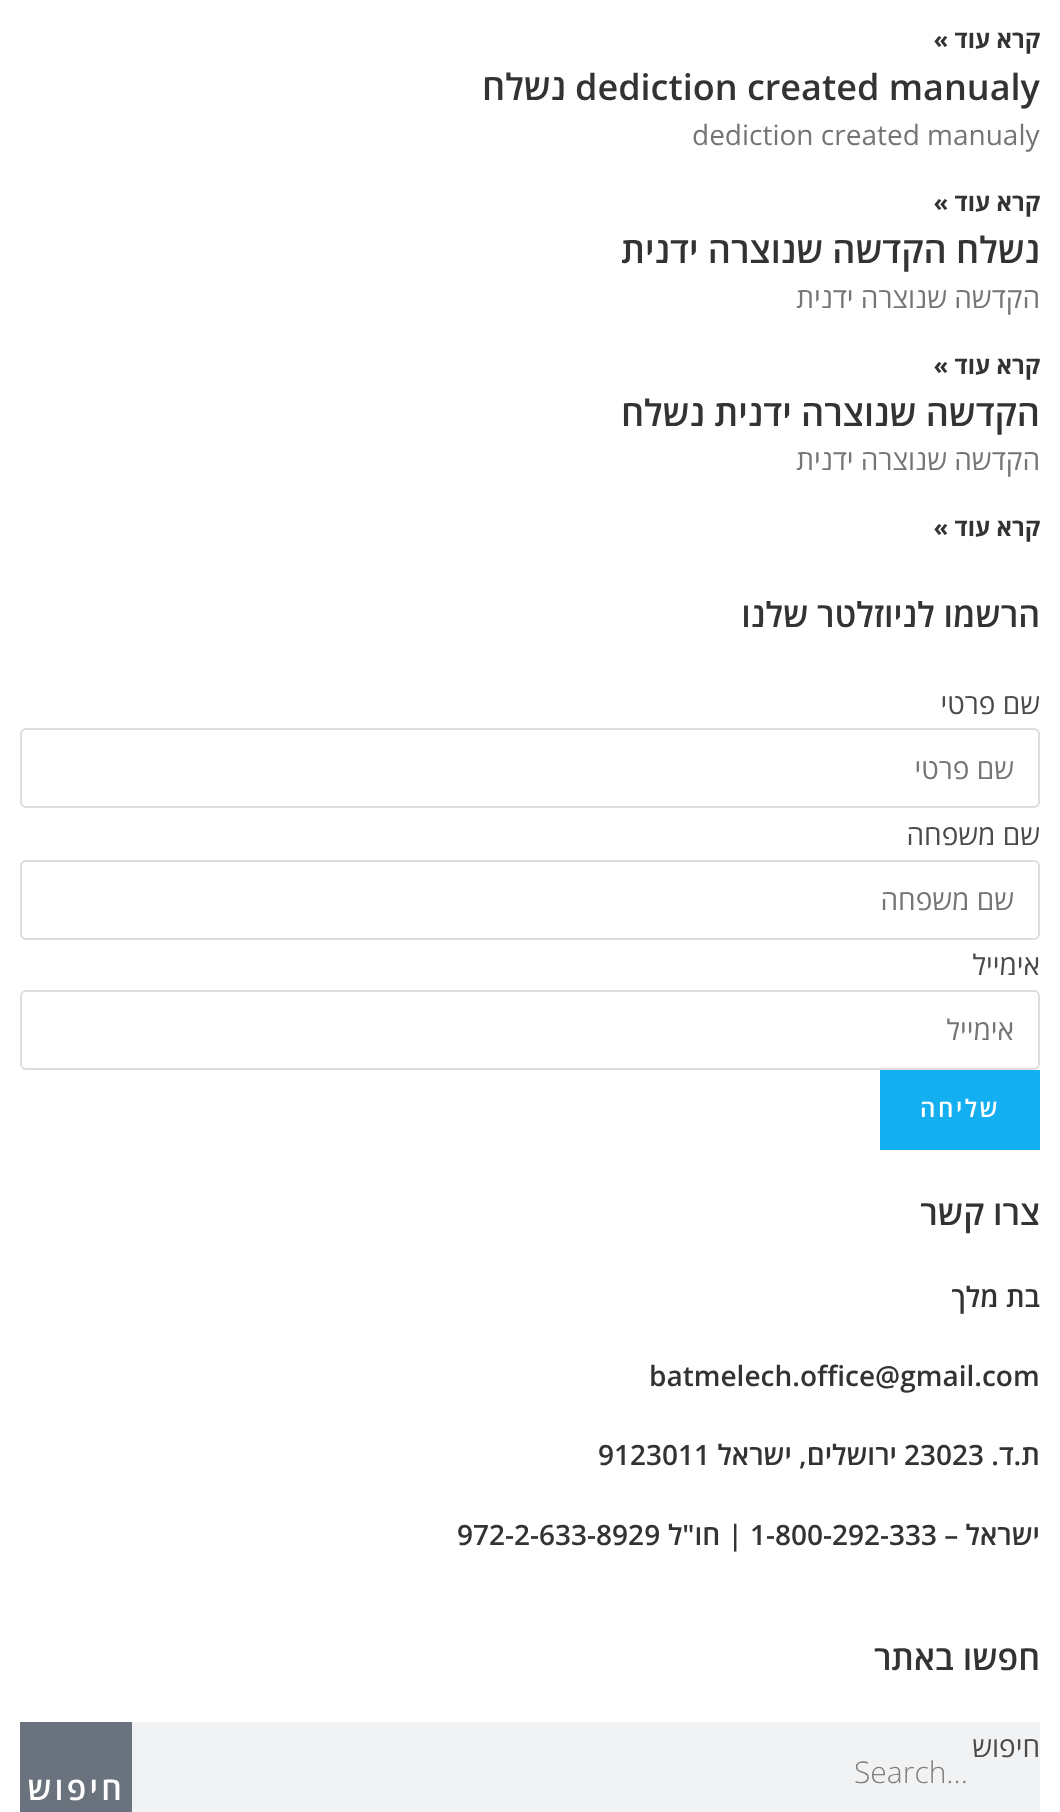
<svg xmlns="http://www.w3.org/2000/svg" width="1060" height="1812">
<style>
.a{font:bold 24px Open Sans;direction:rtl;fill:#333}
.b{font:600 36px Open Sans;fill:#333}
.c{font:600 36px Open Sans;direction:rtl;fill:#333}
.d{font:28px Open Sans;fill:#757575}
.e{font:28px Open Sans;direction:rtl;fill:#757575}
.f{font:600 34px Open Sans;direction:rtl;fill:#333}
.g{font:28px Open Sans;direction:rtl;fill:#4a4a4a}
.h{font:600 24px Open Sans;letter-spacing:2.5px;direction:rtl;fill:#fff}
.i{font:600 28px Open Sans;direction:rtl;fill:#333}
.j{font:600 28px Open Sans;fill:#333}
.k{font:300 30px Open Sans;fill:#7f7f80}
.l{font:600 32px Open Sans;letter-spacing:3.25px;direction:rtl;fill:#fff}
</style>
<rect width="100%" height="100%" fill="#fff"/>
<rect fill="none" stroke="#ddd" stroke-width="2" x="21" y="729" width="1018" height="78" rx="5"/>
<rect fill="none" stroke="#ddd" stroke-width="2" x="21" y="861" width="1018" height="78" rx="5"/>
<rect fill="none" stroke="#ddd" stroke-width="2" x="21" y="991" width="1018" height="78" rx="5"/>
<path fill="#13aff0" d="M880 1070h160v80H880z"/>
<path fill="#f1f2f3" d="M132 1722h908v90H132z"/>
<path fill="#69727d" d="M20 1722h112v90H20z"/>
<text class="a" x="1040" y="48">קרא עוד »</text>
<text class="b" x="575" y="100">dediction created manualy</text>
<text class="c" x="566" y="100">נשלח</text>
<text class="d" x="692" y="145">dediction created manualy</text>
<text class="a" x="1040" y="211">קרא עוד »</text>
<text class="c" x="1040" y="263">נשלח הקדשה שנוצרה ידנית</text>
<text class="e" x="1040" y="308">הקדשה שנוצרה ידנית</text>
<text class="a" x="1040" y="374">קרא עוד »</text>
<text class="c" x="1040" y="426">הקדשה שנוצרה ידנית נשלח</text>
<text class="e" x="1040" y="470">הקדשה שנוצרה ידנית</text>
<text class="a" x="1040" y="536">קרא עוד »</text>
<text class="f" x="1040" y="627">הרשמו לניוזלטר שלנו</text>
<text class="g" x="1040" y="714">שם פרטי</text>
<text class="e" x="1014" y="779">שם פרטי</text>
<text class="g" x="1040" y="845">שם משפחה</text>
<text class="e" x="1014" y="910">שם משפחה</text>
<text class="g" x="1040" y="975">אימייל</text>
<text class="e" x="1014" y="1040">אימייל</text>
<text class="h" x="1000" y="1117">שליחה</text>
<text class="f" x="1040" y="1225">צרו קשר</text>
<text class="i" x="1040" y="1307">בת מלך</text>
<text class="j" x="649" y="1386">batmelech.office@gmail.com</text>
<text class="i" x="1040" y="1465">ת.ד.</text>
<text class="j" x="904" y="1465">23023</text>
<text class="i" x="897" y="1465">ירושלים, ישראל</text>
<text class="j" x="598" y="1465">9123011</text>
<text class="i" x="1040" y="1545">ישראל –</text>
<text class="j" x="750" y="1545">1-800-292-333</text>
<text class="i" x="743" y="1545">| חו"ל</text>
<text class="j" x="457" y="1545">972-2-633-8929</text>
<text class="f" x="1040" y="1670">חפשו באתר</text>
<text class="g" x="1040" y="1757">חיפוש</text>
<text class="k" x="854" y="1783">Search...</text>
<text class="l" x="125" y="1800">חיפוש</text>
</svg>
